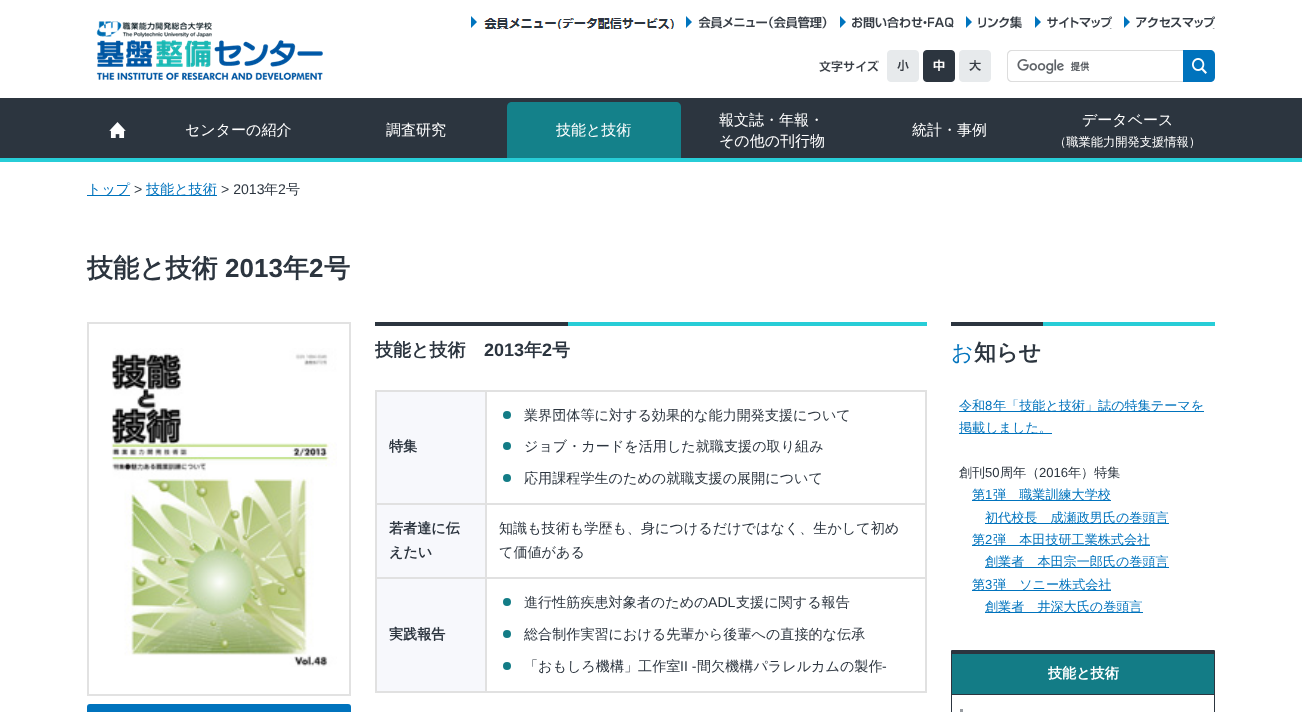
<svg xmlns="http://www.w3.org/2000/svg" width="1302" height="712">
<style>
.a{font:500 15px WenQuanYi Zen Hei;fill:#fff}
.b{font:500 12.25px WenQuanYi Zen Hei;fill:#fff}
.c{font:500 14.1px WenQuanYi Zen Hei;fill:#0073bd}
.d{font:14.1px Liberation Sans;fill:#2c353f}
.e{font:500 14.1px WenQuanYi Zen Hei;fill:#2c353f}
.f{font:bold 26px WenQuanYi Zen Hei;fill:#2c353f}
.g{font:bold 26px Liberation Sans;fill:#2c353f}
.h{font:bold 18px WenQuanYi Zen Hei;fill:#2c353f}
.i{font:bold 18px Liberation Sans;fill:#2c353f}
.j{font:bold 14.1px WenQuanYi Zen Hei;fill:#2c353f}
.k{font:100 22px Noto Sans;fill:#0073bd}
.l{font:bold 22px WenQuanYi Zen Hei;fill:#2c353f}
.m{font:500 13.1px WenQuanYi Zen Hei;fill:#0073bd}
.n{font:13.1px Liberation Sans;fill:#0073bd}
.o{font:500 13.1px WenQuanYi Zen Hei;fill:#2c353f}
.p{font:13.1px Liberation Sans;fill:#2c353f}
.q{font:bold 14.1px WenQuanYi Zen Hei;fill:#fff}
</style>
<rect width="100%" height="100%" fill="#fff"/>
<image href="1.png" x="96" y="21" width="227" height="59"/>
<image href="2.png" x="471" y="16" width="6" height="12"/>
<image href="3.png" x="484" y="18" width="190" height="11"/>
<image href="2.png" x="686" y="16" width="6" height="12"/>
<image href="4.png" x="698" y="16" width="130" height="13"/>
<image href="2.png" x="840" y="16" width="6" height="12"/>
<image href="5.png" x="852" y="17" width="102" height="12"/>
<image href="2.png" x="966" y="16" width="6" height="12"/>
<image href="6.png" x="978" y="16" width="44" height="13"/>
<image href="2.png" x="1035" y="16" width="6" height="12"/>
<image href="7.png" x="1047" y="16" width="65" height="13"/>
<image href="2.png" x="1124" y="16" width="6" height="12"/>
<image href="8.png" x="1136" y="16" width="79" height="13"/>
<image href="9.png" x="819" y="60" width="60" height="12"/>
<image href="10.png" x="887" y="50" width="32" height="32"/>
<image href="11.png" x="923" y="50" width="32" height="32"/>
<image href="12.png" x="959" y="50" width="32" height="32"/>
<image href="13.png" x="1017" y="59" width="73" height="15"/>
<path fill="#ddd" fill-rule="evenodd" d="M1012 50h171v32h-171c-3 0-5-2-5-5v-22c0-3 2-5 5-5zm0 1h171v30h-171c-2 0-4-2-4-4v-22c0-2 2-4 4-4z"/>
<path fill="#0073bd" d="M1183 50h27c3 0 5 2 5 5v22c0 3-2 5-5 5h-27z"/>
<image href="14.png" x="1192" y="58" width="15" height="16"/>
<path fill="#2c353f" d="M0 98h1302v60H0z"/>
<path fill="#27cdd7" d="M0 158h1302v4H0z"/>
<image href="15.png" x="109" y="122" width="17" height="16"/>
<path fill="#14818a" d="M512 102h164c3 0 5 2 5 5v51h-174v-51c0-3 2-5 5-5z"/>
<path fill="#0073bd" d="M87 195h43v1H87z"/>
<path fill="#0073bd" d="M146 195h71v1H146z"/>
<path fill="none" stroke="#e2e2e2" stroke-width="2" d="M88 323h262v372H88z"/>
<image href="16.png" x="111" y="348" width="226" height="319"/>
<rect fill="#0073bd" x="87" y="704" width="264" height="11" rx="3"/>
<path fill="#2c353f" d="M375 322h193v4H375z"/>
<path fill="#27cdd7" d="M568 322h359v4H568z"/>
<path fill="#e1e1e1" d="M375 390h552v2H375z"/>
<path fill="#e1e1e1" d="M925 390h2v303H925z"/>
<path fill="#e1e1e1" d="M375 691h552v2H375z"/>
<path fill="#e1e1e1" d="M375 390h2v303H375z"/>
<path fill="#f7f8fc" d="M377 392h108v111H377z"/>
<path fill="#e1e1e1" d="M485 503h442v2H485z"/>
<path fill="#e1e1e1" d="M485 577h442v2H485z"/>
<path fill="#e1e1e1" d="M485 577h2v116H485z"/>
<path fill="#e1e1e1" d="M375 577h112v2H375z"/>
<path fill="#e1e1e1" d="M485 503h2v76H485z"/>
<path fill="#e1e1e1" d="M375 503h112v2H375z"/>
<path fill="#e1e1e1" d="M485 390h2v115H485z"/>
<circle fill="#137c86" cx="507" cy="415" r="4"/>
<circle fill="#137c86" cx="507" cy="446" r="4"/>
<circle fill="#137c86" cx="507" cy="478" r="4"/>
<path fill="#f7f8fc" d="M377 505h108v72H377z"/>
<path fill="#f7f8fc" d="M377 579h108v112H377z"/>
<circle fill="#137c86" cx="507" cy="602" r="4"/>
<circle fill="#137c86" cx="507" cy="634" r="4"/>
<circle fill="#137c86" cx="507" cy="666" r="4"/>
<path fill="#2c353f" d="M951 322h92v4H951z"/>
<path fill="#27cdd7" d="M1043 322h172v4H1043z"/>
<path fill="#0073bd" d="M959 411h245v1H959z"/>
<path fill="#0073bd" d="M959 433h93v1H959z"/>
<path fill="#0073bd" d="M972 500h139v1H972z"/>
<path fill="#0073bd" d="M985 523h184v1H985z"/>
<path fill="#0073bd" d="M972 545h178v1H972z"/>
<path fill="#0073bd" d="M985 567h184v1H985z"/>
<path fill="#0073bd" d="M972 590h139v1H972z"/>
<path fill="#0073bd" d="M985 612h158v1H985z"/>
<path fill="none" stroke="#2c353f" d="M951.5 650.5h263v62H951.5z"/>
<path fill="#2c353f" d="M952 651h262v3H952z"/>
<path fill="#2c353f" d="M952 694h262v1H952z"/>
<path fill="#137c86" d="M952 654h262v40H952z"/>
<path fill="#989ca1" d="M960 709h3v3H960z"/>
<text class="a" x="185" y="135">センターの紹介</text>
<text class="a" x="386" y="135">調査研究</text>
<text class="a" x="556" y="135">技能と技術</text>
<text class="a" x="719" y="125">報文誌・年報・</text>
<text class="a" x="719" y="146">その他の刊行物</text>
<text class="a" x="912" y="135">統計・事例</text>
<text class="a" x="1082" y="125">データベース</text>
<text class="b" x="1054" y="146">（職業能力開発支援情報）</text>
<text class="c" x="87" y="194">トップ</text>
<text class="d" x="134" y="194">&gt;</text>
<text class="c" x="146" y="194">技能と技術</text>
<text class="d" x="221" y="194">&gt; 2013</text>
<text class="e" x="264" y="194">年</text>
<text class="d" x="278" y="194">2</text>
<text class="e" x="286" y="194">号</text>
<text class="f" x="87" y="277">技能と技術</text>
<text class="g" x="225" y="277">2013</text>
<text class="f" x="283" y="277">年</text>
<text class="g" x="309" y="277">2</text>
<text class="f" x="324" y="277">号</text>
<text class="h" x="375" y="356">技能と技術</text>
<text class="i" x="484" y="356">2013</text>
<text class="h" x="524" y="356">年</text>
<text class="i" x="542" y="356">2</text>
<text class="h" x="552" y="356">号</text>
<text class="j" x="389" y="451">特集</text>
<text class="e" x="524" y="420">業界団体等に対する効果的な能力開発支援について</text>
<text class="e" x="524" y="451">ジョブ・カードを活用した就職支援の取り組み</text>
<text class="e" x="524" y="483">応用課程学生のための就職支援の展開について</text>
<text class="j" x="389" y="533">若者達に伝</text>
<text class="j" x="389" y="557">えたい</text>
<text class="e" x="499" y="533">知識も技術も学歴も、身につけるだけではなく、生かして初め</text>
<text class="e" x="499" y="557">て価値がある</text>
<text class="j" x="389" y="639">実践報告</text>
<text class="e" x="524" y="607">進行性筋疾患対象者のための</text>
<text class="d" x="708" y="607">ADL</text>
<text class="e" x="736" y="607">支援に関する報告</text>
<text class="e" x="524" y="639">総合制作実習における先輩から後輩への直接的な伝承</text>
<text class="e" x="524" y="671">「おもしろ機構」工作室</text>
<text class="d" x="680" y="671">II -</text>
<text class="e" x="697" y="671">間欠機構パラレルカムの製作</text>
<text class="d" x="882" y="671">-</text>
<text class="k" x="951" y="360">お</text>
<text class="l" x="974" y="360">知らせ</text>
<text class="m" x="959" y="410">令和</text>
<text class="n" x="985" y="410">8</text>
<text class="m" x="993" y="410">年「技能と技術」誌の特集テーマを</text>
<text class="m" x="959" y="432">掲載しました。</text>
<text class="o" x="959" y="477">創刊</text>
<text class="p" x="985" y="477">50</text>
<text class="o" x="1000" y="477">周年（</text>
<text class="p" x="1039" y="477">2016</text>
<text class="o" x="1068" y="477">年）特集</text>
<text class="m" x="972" y="499">第</text>
<text class="n" x="985" y="499">1</text>
<text class="m" x="993" y="499">弾　職業訓練大学校</text>
<text class="m" x="985" y="522">初代校長　成瀬政男氏の巻頭言</text>
<text class="m" x="972" y="544">第</text>
<text class="n" x="985" y="544">2</text>
<text class="m" x="993" y="544">弾　本田技研工業株式会社</text>
<text class="m" x="985" y="566">創業者　本田宗一郎氏の巻頭言</text>
<text class="m" x="972" y="589">第</text>
<text class="n" x="985" y="589">3</text>
<text class="m" x="993" y="589">弾　ソニー株式会社</text>
<text class="m" x="985" y="611">創業者　井深大氏の巻頭言</text>
<text class="q" x="1048" y="678">技能と技術</text>
</svg>
